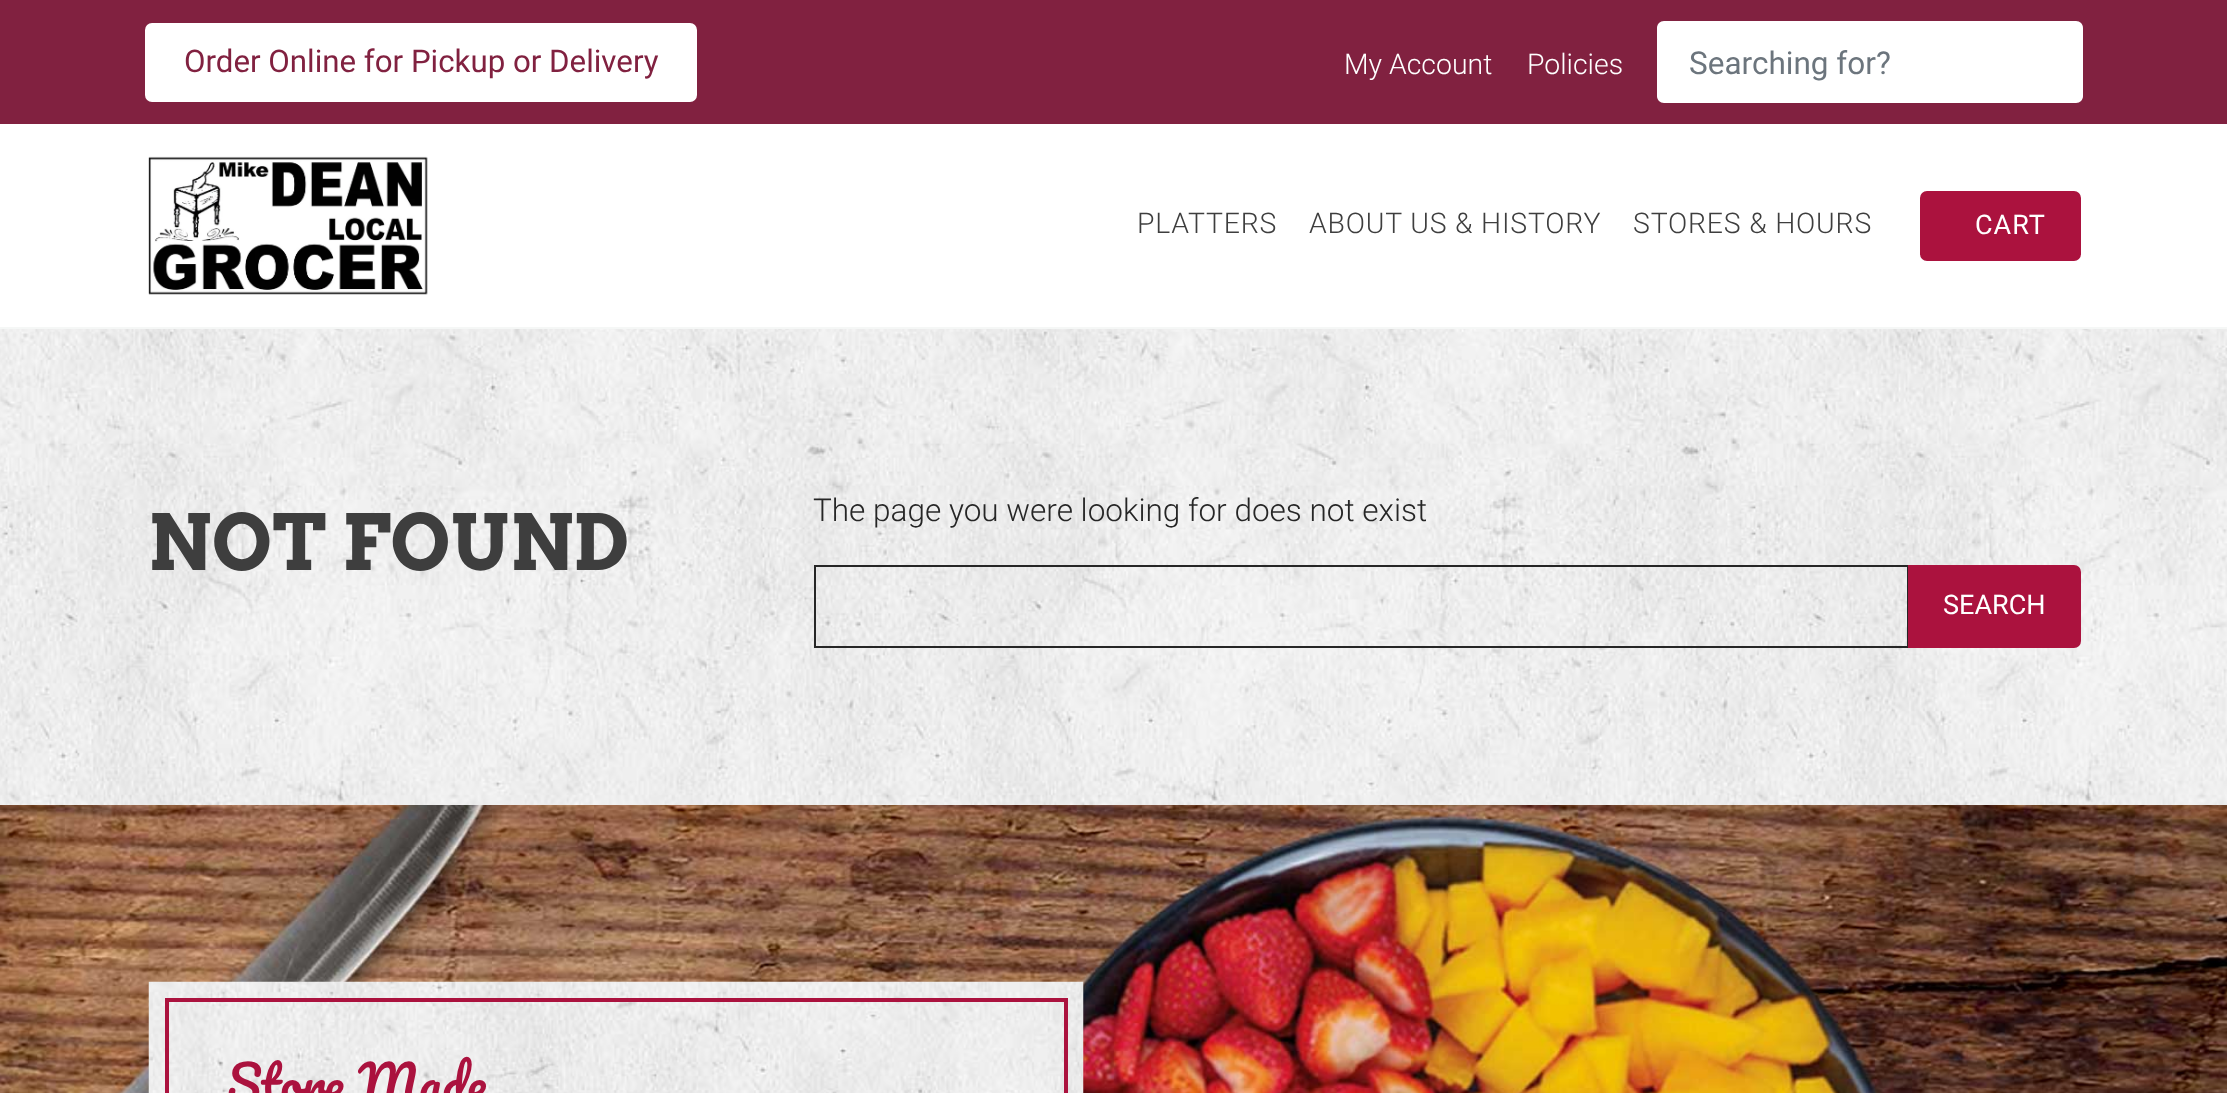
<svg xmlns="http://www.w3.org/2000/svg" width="2227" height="1093">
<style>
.a{font:31.25px Roboto;fill:#812140}
.b{font:300 28.4px Roboto;fill:#fff}
.c{font:31.5px Roboto;fill:#6c757d}
.d{font:300 28.4px Roboto;letter-spacing:0.8px;fill:#3e3e3e}
.e{font:27px Roboto;letter-spacing:1px;fill:#fff}
.f{font:bold 77px Arvo;fill:#3e3e3e}
.g{font:300 31.5px Roboto;fill:#262626}
.h{font:27px Roboto;fill:#fff}
.i{font:49.25px Pacifico;fill:#ab123e}
</style>
<rect width="100%" height="100%" fill="#fff"/>
<image href="1.png" x="0" y="329" width="2227" height="476"/>
<path fill="#812140" d="M0 0h2227v124H0z"/>
<rect fill="#fff" x="145" y="23" width="552" height="79" rx="7"/>
<path fill="#fff" d="M1664 21h350v82h-350c-4 0-7-3-7-7v-68c0-4 3-7 7-7z"/>
<path fill="#fff" d="M2013 21h63c4 0 7 3 7 7v68c0 4-3 7-7 7h-63z"/>
<path fill="#f5f7f6" d="M0 327h2227v2H0z"/>
<image href="2.png" x="148" y="156" width="280" height="139"/>
<rect fill="#ab123e" stroke="#ab123e" stroke-width="2" x="1921" y="192" width="159" height="68" rx="6"/>
<path fill="none" stroke="#262626" stroke-width="2" d="M815 566h1093v81H815z"/>
<path fill="#ab123e" stroke="#ab123e" stroke-width="2" d="M1909 566h165c3.5 0 6 2.5 6 6v69c0 3.5-2.5 6-6 6h-165z"/>
<image href="3.png" x="0" y="805" width="2227" height="288"/>
<image href="4.png" x="148" y="981" width="936" height="112"/>
<path fill="none" stroke="#ab123e" stroke-width="4" d="M167 1000h899v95H167z"/>
<text class="a" x="184" y="72">Order Online for Pickup or Delivery</text>
<text class="b" x="1344" y="74">My Account</text>
<text class="b" x="1527" y="74">Policies</text>
<text class="c" x="1689" y="74">Searching for?</text>
<text class="d" x="1137" y="233">PLATTERS</text>
<text class="d" x="1309" y="233">ABOUT US &amp; HISTORY</text>
<text class="d" x="1633" y="233">STORES &amp; HOURS</text>
<text class="e" x="1975" y="234">CART</text>
<text class="f" x="148" y="570">NOT FOUND</text>
<text class="g" x="813" y="521">The page you were looking for does not exist</text>
<text class="h" x="1943" y="614">SEARCH</text>
<text class="i" x="227" y="1103">Store Made</text>
</svg>
